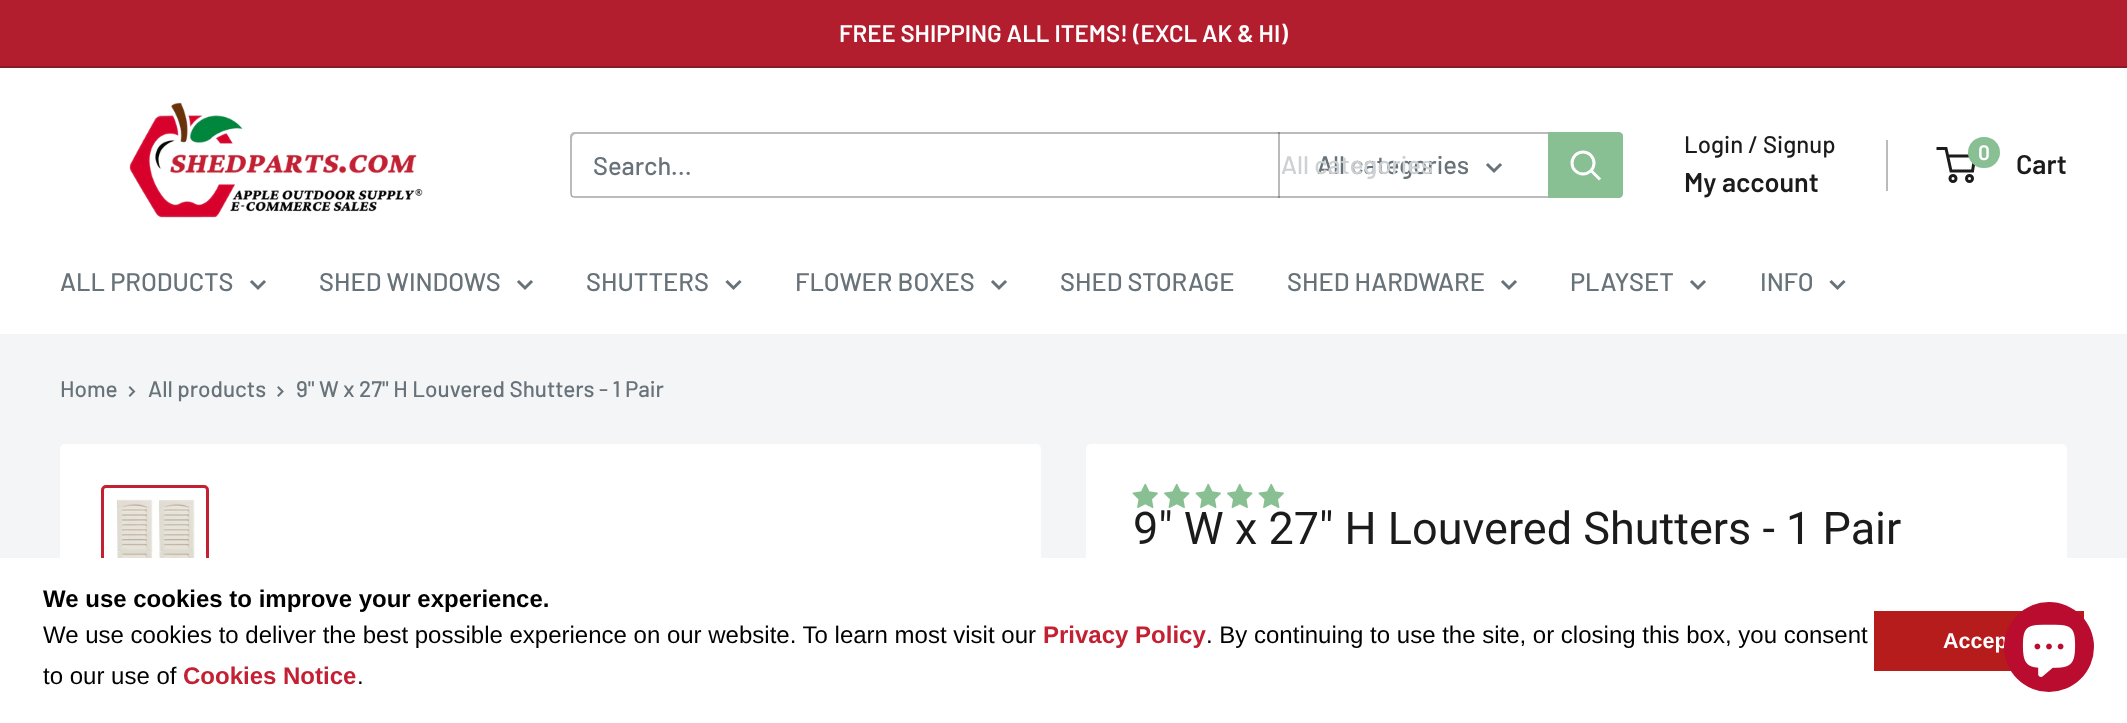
<svg xmlns="http://www.w3.org/2000/svg" width="2127" height="723">
<style>
.a{font:600 24px Barlow;fill:#fff}
.b{font:500 25.5px Barlow;fill:#677279}
.c{font:500 25.5px Barlow;fill:#cdd1d3}
.d{font:500 24px Barlow;fill:#1c1b1b}
.e{font:600 27px Barlow;fill:#1c1b1b}
.f{font:600 21px Barlow;fill:#fff}
.g{font:500 22.5px Barlow;fill:#677279}
.h{font:45px Roboto;fill:#1c1b1b}
.i{font:bold 24px Liberation Sans;fill:#000}
.j{font:24px Liberation Sans;fill:#000}
.k{font:bold 24px Liberation Sans;fill:#c32033}
.l{font:bold 21.5px Liberation Sans;fill:#fff}
</style>
<rect width="100%" height="100%" fill="#f3f5f6"/>
<path fill="#b31e2f" d="M0 0h2127v66H0z"/>
<path fill="#861d29" d="M0 66h2127v2H0z"/>
<path fill="#fff" d="M0 68h2127v266H0z"/>
<image href="1.png" x="129" y="102" width="294" height="116"/>
<path fill="#bbb" d="M571 195c0 2 2 3 4 3h1043c3 0 5-2 5-5v-56c0-1-1-3-1-4v2v57c0 2-3 4-5 4h-1044z"/>
<path fill="#1c1b1b4d" d="M576 134h1044l3 1c-1-2-3-3-5-3h-1043c-3 0-5 2-5 5v56c0 2 1 4 3 4l-1-2v-57c0-2 2-4 4-4z"/>
<path fill="#1c1b1b4d" d="M1278 132h2v66H1278z"/>
<path fill="none" stroke="#677279" stroke-width="3" stroke-linecap="square" d="M1500 165l-6 6l-6-6"/>
<path fill="#88bf93" d="M1548 132h70c3 0 5 2 5 5v56c0 3-2 5-5 5h-70z"/>
<path fill="none" stroke="#fff" stroke-width="3" stroke-linecap="square" d="M1599 178.5l-7.5-7.5"/>
<circle fill="none" stroke="#fff" stroke-width="3" cx="1583" cy="163" r="11"/>
<path fill="#bbb" d="M1886 140h2v51H1886z"/>
<circle fill="none" stroke="#1c1b1b" stroke-width="3" cx="1953" cy="178.5" r="3"/>
<circle fill="none" stroke="#1c1b1b" stroke-width="3" cx="1969.5" cy="178.5" r="3"/>
<path fill="none" stroke="#1c1b1b" stroke-width="3" d="M1947.5 156h27.5l-2.5 15h-21.5l-5-22.5h-9.5"/>
<rect fill="#88bf93" x="1968" y="137" width="32" height="31" rx="15.5"/>
<path fill="none" stroke="#677279" stroke-width="3" stroke-linecap="square" d="M264 282l-6 6l-6-6"/>
<path fill="none" stroke="#677279" stroke-width="3" stroke-linecap="square" d="M531 282l-6 6l-6-6"/>
<path fill="none" stroke="#677279" stroke-width="3" stroke-linecap="square" d="M739.5 282l-6 6l-6-6"/>
<path fill="none" stroke="#677279" stroke-width="3" stroke-linecap="square" d="M1005 282l-6 6l-6-6"/>
<path fill="none" stroke="#677279" stroke-width="3" stroke-linecap="square" d="M1515 282l-6 6l-6-6"/>
<path fill="none" stroke="#677279" stroke-width="3" stroke-linecap="square" d="M1704 282l-6 6l-6-6"/>
<path fill="none" stroke="#677279" stroke-width="3" stroke-linecap="square" d="M1843.5 282l-6 6l-6-6"/>
<path fill="none" stroke="#677279" stroke-width="2" stroke-linecap="square" d="M130 387.5l4 4l-4 4"/>
<path fill="none" stroke="#677279" stroke-width="2" stroke-linecap="square" d="M278.5 387.5l4 4l-4 4"/>
<rect fill="#fff" stroke="#fff" stroke-width="2" x="61" y="445" width="979" height="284" rx="4"/>
<rect fill="none" stroke="#c32033" stroke-width="3" x="102.5" y="486.5" width="105" height="133" rx="3.5"/>
<image href="2.png" x="116" y="499" width="79" height="59"/>
<rect fill="#fff" stroke="#fff" stroke-width="2" x="1087" y="445" width="979" height="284" rx="4"/>
<image href="3.png" x="1132" y="483" width="26" height="25"/>
<image href="4.png" x="1164" y="483" width="26" height="25"/>
<image href="3.png" x="1195" y="483" width="26" height="25"/>
<image href="4.png" x="1227" y="483" width="26" height="25"/>
<image href="3.png" x="1258" y="483" width="26" height="25"/>
<path fill="#fff" d="M0 558h2127v165H0z"/>
<path fill="#b71c1c" d="M1874 611h210v60H1874z"/>
<text class="a" x="839" y="42">FREE SHIPPING ALL ITEMS! (EXCL AK &amp; HI)</text>
<text class="b" x="593" y="175">Search...</text>
<text class="b" x="1317" y="174">All categories</text>
<text class="c" x="1281" y="174">All categories</text>
<text class="d" x="1684" y="153">Login / Signup</text>
<text class="e" x="1684" y="192">My account</text>
<text class="f" x="1978" y="160">0</text>
<text class="e" x="2016" y="174">Cart</text>
<text class="b" x="60" y="291">ALL PRODUCTS</text>
<text class="b" x="319" y="291">SHED WINDOWS</text>
<text class="b" x="586" y="291">SHUTTERS</text>
<text class="b" x="795" y="291">FLOWER BOXES</text>
<text class="b" x="1060" y="291">SHED STORAGE</text>
<text class="b" x="1287" y="291">SHED HARDWARE</text>
<text class="b" x="1570" y="291">PLAYSET</text>
<text class="b" x="1760" y="291">INFO</text>
<text class="g" x="60" y="397">Home</text>
<text class="g" x="148" y="397">All products</text>
<text class="g" x="296" y="397">9" W x 27" H Louvered Shutters - 1 Pair</text>
<text class="h" x="1133" y="544">9" W x 27" H Louvered Shutters - 1 Pair</text>
<text class="i" x="43" y="607">We use cookies to improve your experience.</text>
<text class="j" x="43" y="643">We use cookies to deliver the best possible experience on our website. To learn most visit our</text>
<text class="k" x="1043" y="643">Privacy Policy</text>
<text class="j" x="1206" y="643">. By continuing to use the site, or closing this box, you consent</text>
<text class="j" x="43" y="684">to our use of</text>
<text class="k" x="183" y="684">Cookies Notice</text>
<text class="j" x="357" y="684">.</text>
<text class="l" x="1943" y="648">Accep</text>
<circle fill="#ba0c2f" cx="2049" cy="647" r="45"/>
<image href="5.png" x="2022" y="624" width="54" height="53"/>
</svg>
